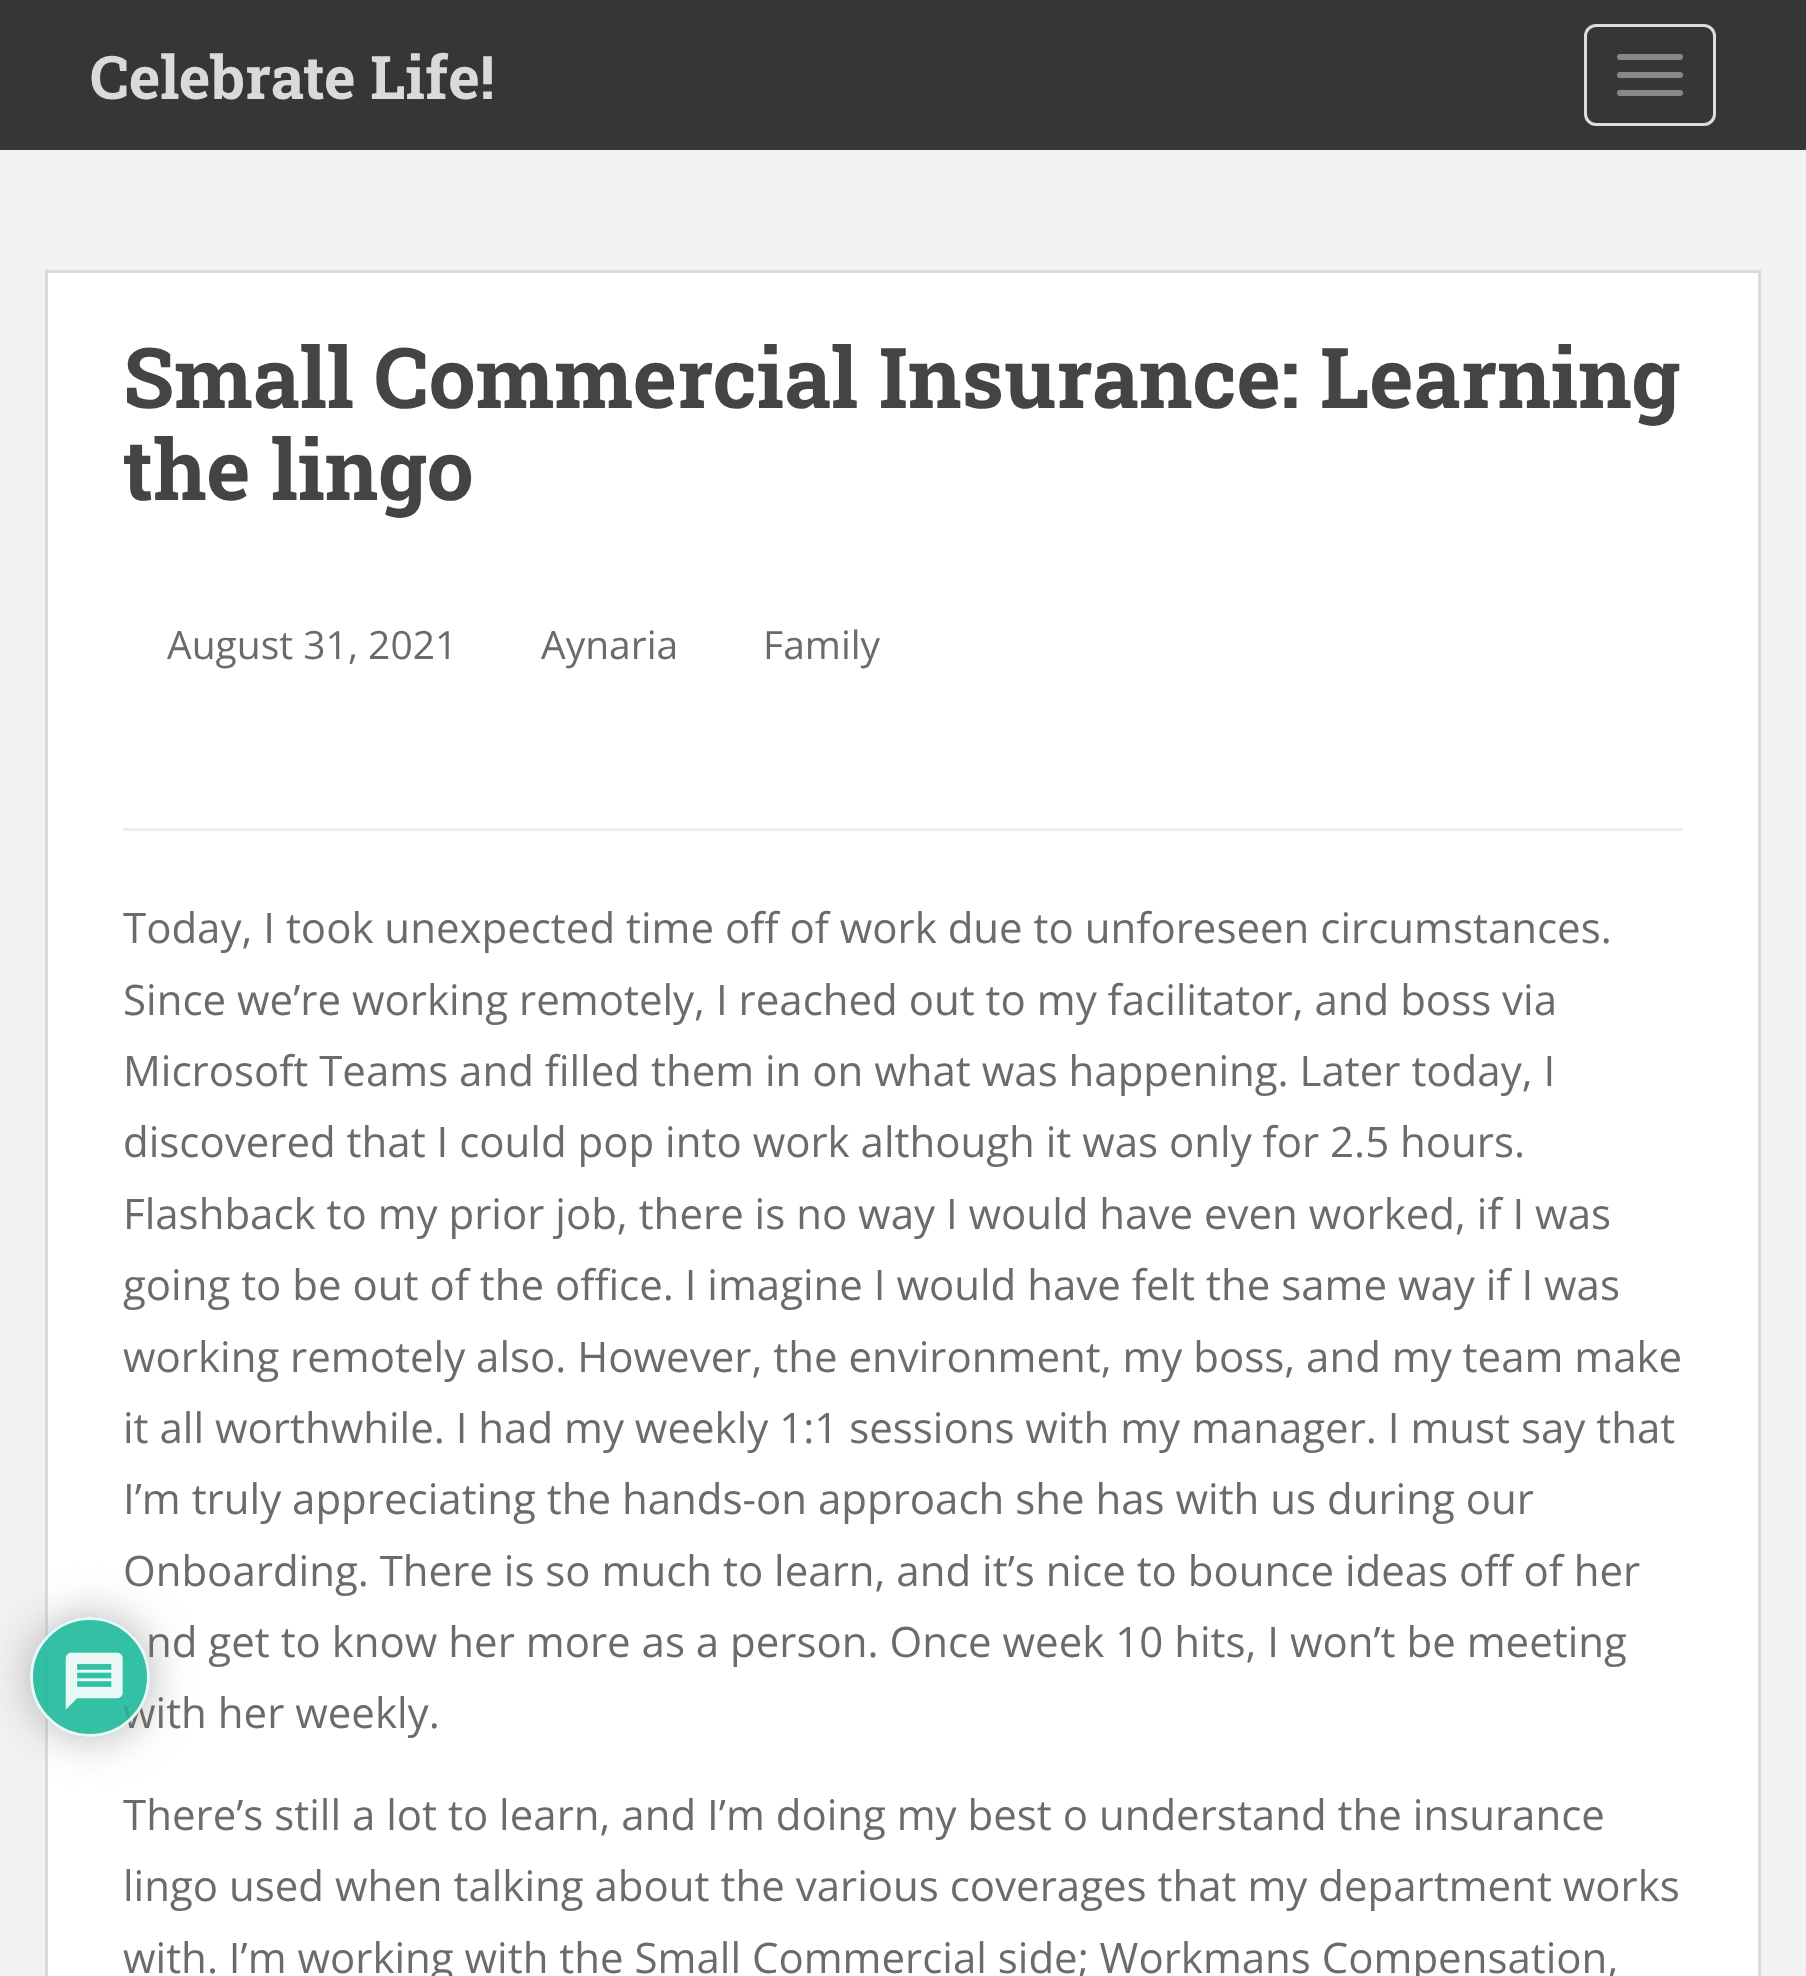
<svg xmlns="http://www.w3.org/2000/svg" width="1806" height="1976">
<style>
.a{font:bold 60px Roboto Slab;fill:#dadada}
.b{font:bold 84px Roboto Slab;fill:#444}
.c{font:39px Open Sans;fill:#6b6b6b}
.d{font:42px Open Sans;fill:#6b6b6b}
</style>
<defs>
<clipPath id="clip1"><path d="M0 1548h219v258h-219zm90 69c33 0 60 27 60 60c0 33-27 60-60 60c-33 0-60-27-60-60c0-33 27-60 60-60z" clip-rule="evenodd"/></clipPath>
</defs>
<rect width="100%" height="100%" fill="#f2f2f2"/>
<path fill="#363636" d="M0 0h1806v150H0z"/>
<rect fill="none" stroke="#ddd" stroke-width="3" x="1585.5" y="25.5" width="129" height="99" rx="10.5"/>
<rect fill="#888" x="1617" y="54" width="66" height="6" rx="3"/>
<rect fill="#888" x="1617" y="72" width="66" height="6" rx="3"/>
<rect fill="#888" x="1617" y="90" width="66" height="6" rx="3"/>
<path fill="#fff" stroke="#dadada" stroke-width="3" d="M46.5 271.5h1713v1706H46.5z"/>
<path fill="#eee" d="M123 828h1560v3H123z"/>
<g clip-path="url(#clip1)">
<rect fill="#aaaaaae6" filter="blur(22.5px)" x="30" y="1617" width="120" height="120" rx="60"/>
</g>
<text class="a" x="90" y="99">Celebrate Life!</text>
<text class="b" x="123" y="408">Small Commercial Insurance: Learning</text>
<text class="b" x="123" y="500">the lingo</text>
<text class="c" x="167" y="659">August 31, 2021</text>
<text class="c" x="541" y="659">Aynaria</text>
<text class="c" x="763" y="659">Family</text>
<text class="d" x="123" y="943">Today, I took unexpected time off of work due to unforeseen circumstances.</text>
<text class="d" x="123" y="1015">Since we’re working remotely, I reached out to my facilitator, and boss via</text>
<text class="d" x="123" y="1086">Microsoft Teams and filled them in on what was happening. Later today, I</text>
<text class="d" x="123" y="1157">discovered that I could pop into work although it was only for 2.5 hours.</text>
<text class="d" x="123" y="1229">Flashback to my prior job, there is no way I would have even worked, if I was</text>
<text class="d" x="123" y="1300">going to be out of the office. I imagine I would have felt the same way if I was</text>
<text class="d" x="123" y="1372">working remotely also. However, the environment, my boss, and my team make</text>
<text class="d" x="123" y="1443">it all worthwhile. I had my weekly 1:1 sessions with my manager. I must say that</text>
<text class="d" x="123" y="1514">I’m truly appreciating the hands-on approach she has with us during our</text>
<text class="d" x="123" y="1586">Onboarding. There is so much to learn, and it’s nice to bounce ideas off of her</text>
<text class="d" x="146" y="1657">nd get to know her more as a person. Once week 10 hits, I won’t be meeting</text>
<text class="d" x="123" y="1728">with her weekly.</text>
<text class="d" x="123" y="1830">There’s still a lot to learn, and I’m doing my best o understand the insurance</text>
<text class="d" x="123" y="1901">lingo used when talking about the various coverages that my department works</text>
<text class="d" x="123" y="1973">with. I’m working with the Small Commercial side; Workmans Compensation,</text>
<circle fill="#1db99ae6" cx="90" cy="1677" r="60"/>
<circle fill="none" stroke="#ffffffe6" stroke-width="3" cx="90" cy="1677" r="58.5"/>
<image href="1.png" x="65" y="1652" width="58" height="58"/>
</svg>
